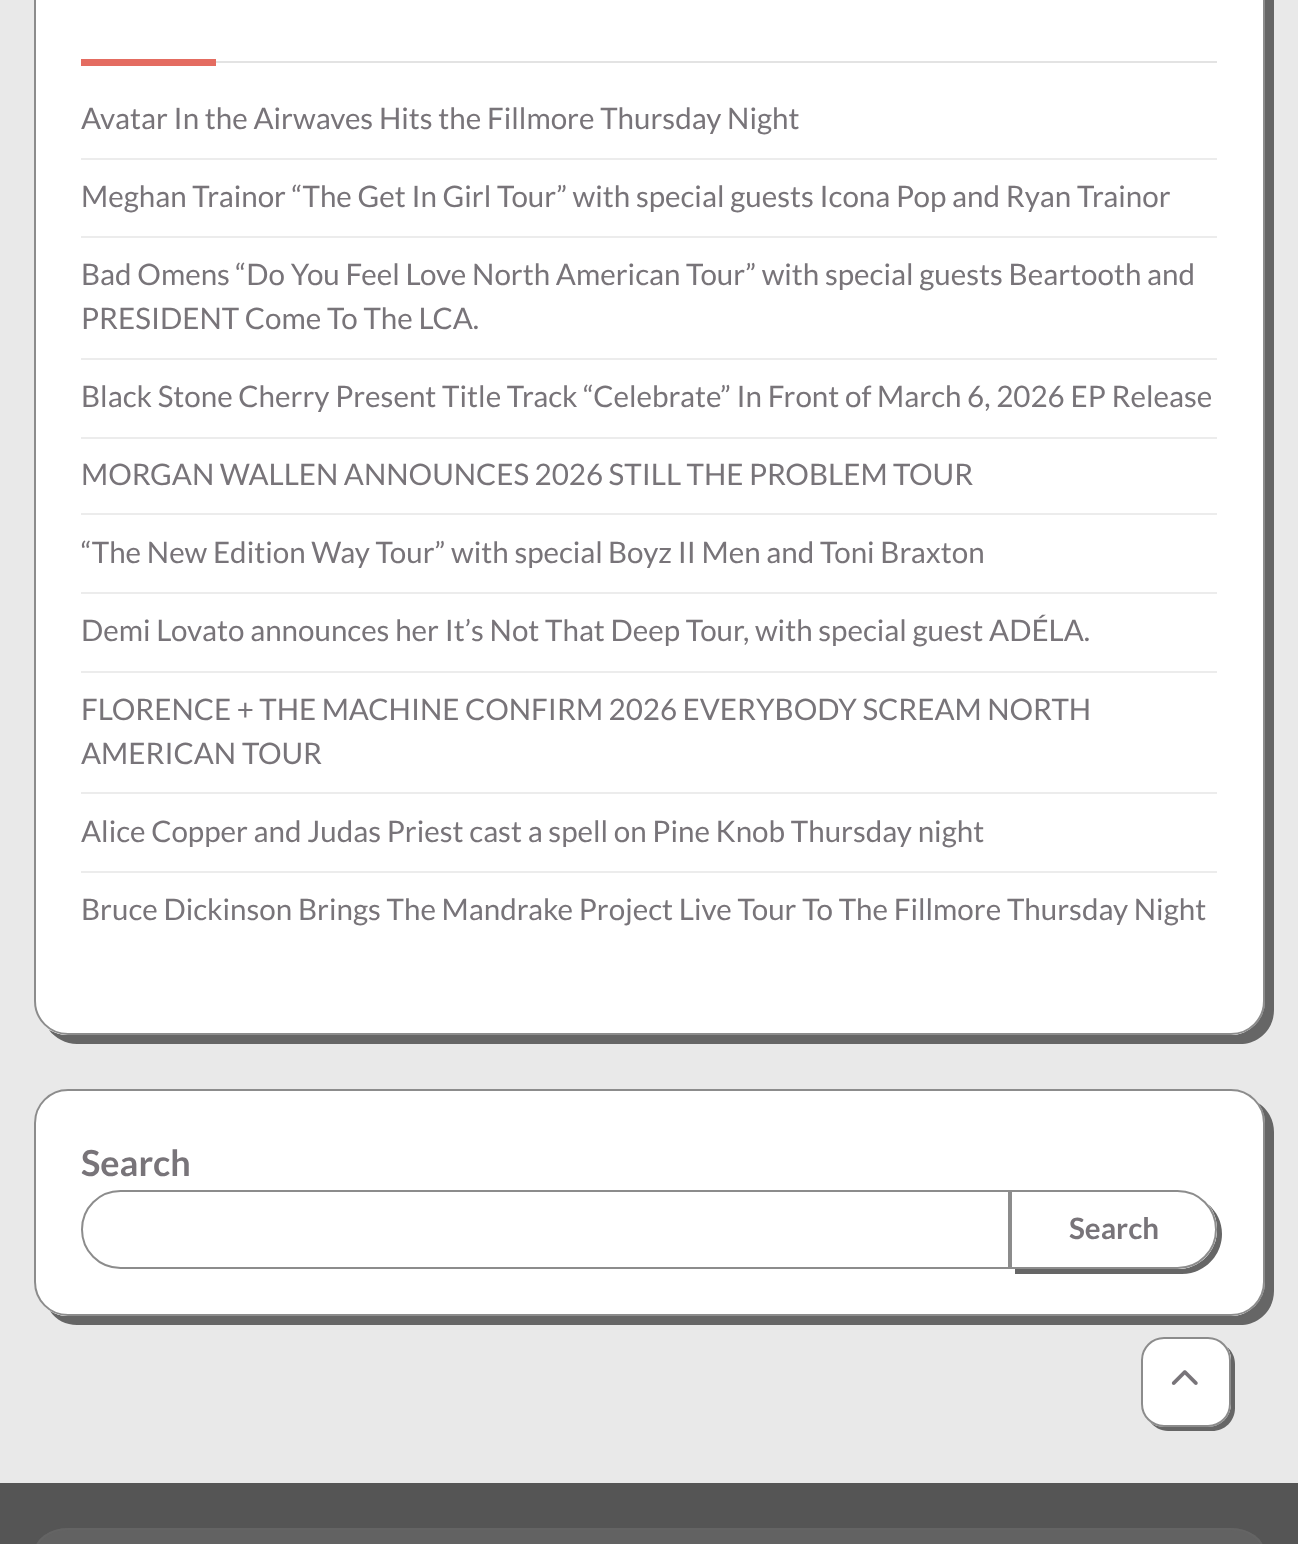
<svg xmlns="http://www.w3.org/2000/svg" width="1298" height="1544">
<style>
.a{font:29.55px Lato;fill:#787479}
.b{font:bold 36px Lato;fill:#787479}
.c{font:bold 29.55px Lato;fill:#787479}
</style>
<rect width="100%" height="100%" fill="#e9e9e9"/>
<path fill="#666" d="M49 1030c6 8 17 14 28 14h1163c19 0 34-15 34-34v-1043c0-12-6-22-15-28c3 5 5 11 5 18v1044c0 19-15 34-33 34h-1163c-7 0-13-2-19-5z"/>
<rect fill="#fff" x="34" y="-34" width="1231" height="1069" rx="34"/>
<rect fill="none" stroke="#666666bf" stroke-width="2" x="35" y="-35" width="1229" height="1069" rx="33"/>
<path fill="#e3e3e3" d="M216 61h1001v2H216z"/>
<path fill="#e46c61" d="M81 59h135v7H81z"/>
<path fill="#ececec" d="M81 158h1136v2H81z"/>
<path fill="#ececec" d="M81 236h1136v2H81z"/>
<path fill="#ececec" d="M81 358h1136v2H81z"/>
<path fill="#ececec" d="M81 437h1136v2H81z"/>
<path fill="#ececec" d="M81 513h1136v2H81z"/>
<path fill="#ececec" d="M81 592h1136v2H81z"/>
<path fill="#ececec" d="M81 671h1136v2H81z"/>
<path fill="#ececec" d="M81 792h1136v2H81z"/>
<path fill="#ececec" d="M81 871h1136v2H81z"/>
<path fill="#666" d="M50 1311c6 9 16 14 27 14h1163c19 0 34-15 34-34v-159c0-12-6-23-16-29c4 6 6 13 6 20v159c0 19-15 34-33 34h-1163c-7 0-13-2-18-5z"/>
<rect fill="#fff" x="34" y="1089" width="1231" height="227" rx="34"/>
<rect fill="none" stroke="#666666bf" stroke-width="2" x="35" y="1090" width="1229" height="225" rx="33"/>
<path fill="none" stroke="#8c8c8c" stroke-width="2" d="M120.5 1191h888.5v77h-888.5c-21.5 0-38.5-17-38.5-38.5c0-21.5 17-38.5 38.5-38.5z"/>
<path fill="#666" d="M1015 1269v5h167c22 0 40-18 40-40c0-12-5-22-14-30c6 7 9 16 9 26c0 21-17 39-39 39z"/>
<path fill="#fff" d="M1010 1190h167.5c22 0 39.5 17.5 39.5 39.5c0 22-17.5 39.5-39.5 39.5h-167.5z"/>
<path fill="none" stroke="#666666bf" stroke-width="2" d="M1011 1191h166.5c21.5 0 38.5 17 38.5 38.5c0 21.5-17 38.5-38.5 38.5h-166.5z"/>
<path fill="#666" d="M1150 1422c4 5 11 9 18 9h44c13 0 23-10 23-23v-44c0-7-3-13-8-17c2 3 4 7 4 12v45c0 12-10 22-23 22h-45c-5 0-9-1-13-4z"/>
<rect fill="#fff" x="1141" y="1337" width="90" height="90" rx="23"/>
<rect fill="none" stroke="#666666bf" stroke-width="2" x="1142" y="1338" width="88" height="88" rx="22"/>
<image href="1.png" x="1171" y="1370" width="27" height="15"/>
<path fill="#555" d="M0 1483h1298v61H0z"/>
<path fill="#404040" d="M50 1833c6 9 16 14 27 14h1163c19 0 34-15 34-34v-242c0-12-6-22-15-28c3 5 5 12 5 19v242c0 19-15 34-33 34h-1163c-7 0-13-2-18-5z"/>
<rect fill="#626262" x="34" y="1528" width="1231" height="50" rx="34"/>
<rect fill="none" stroke="#666666bf" stroke-width="2" x="35" y="1529" width="1229" height="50" rx="33"/>
<text class="a" x="81" y="129">Avatar In the Airwaves Hits the Fillmore Thursday Night</text>
<text class="a" x="81" y="207">Meghan Trainor “The Get In Girl Tour” with special guests Icona Pop and Ryan Trainor</text>
<text class="a" x="81" y="285">Bad Omens “Do You Feel Love North American Tour” with special guests Beartooth and</text>
<text class="a" x="81" y="329">PRESIDENT Come To The LCA.</text>
<text class="a" x="81" y="407">Black Stone Cherry Present Title Track “Celebrate” In Front of March 6, 2026 EP Release</text>
<text class="a" x="81" y="485" word-spacing="-0.25">MORGAN WALLEN ANNOUNCES 2026 STILL THE PROBLEM TOUR</text>
<text class="a" x="81" y="563">“The New Edition Way Tour” with special</text>
<text class="a" x="608" y="563">Boyz II Men and Toni Braxton</text>
<text class="a" x="81" y="641">Demi Lovato announces her It’s Not That Deep Tour, with special guest ADÉLA.</text>
<text class="a" x="81" y="720" word-spacing="-0.25">FLORENCE + THE MACHINE CONFIRM 2026 EVERYBODY SCREAM NORTH</text>
<text class="a" x="81" y="764">AMERICAN TOUR</text>
<text class="a" x="81" y="842">Alice Copper and Judas Priest cast a spell on Pine Knob Thursday night</text>
<text class="a" x="81" y="920">Bruce Dickinson Brings The Mandrake Project Live Tour To The Fillmore Thursday Night</text>
<text class="b" x="81" y="1176">Search</text>
<text class="c" x="1069" y="1239">Search</text>
</svg>
